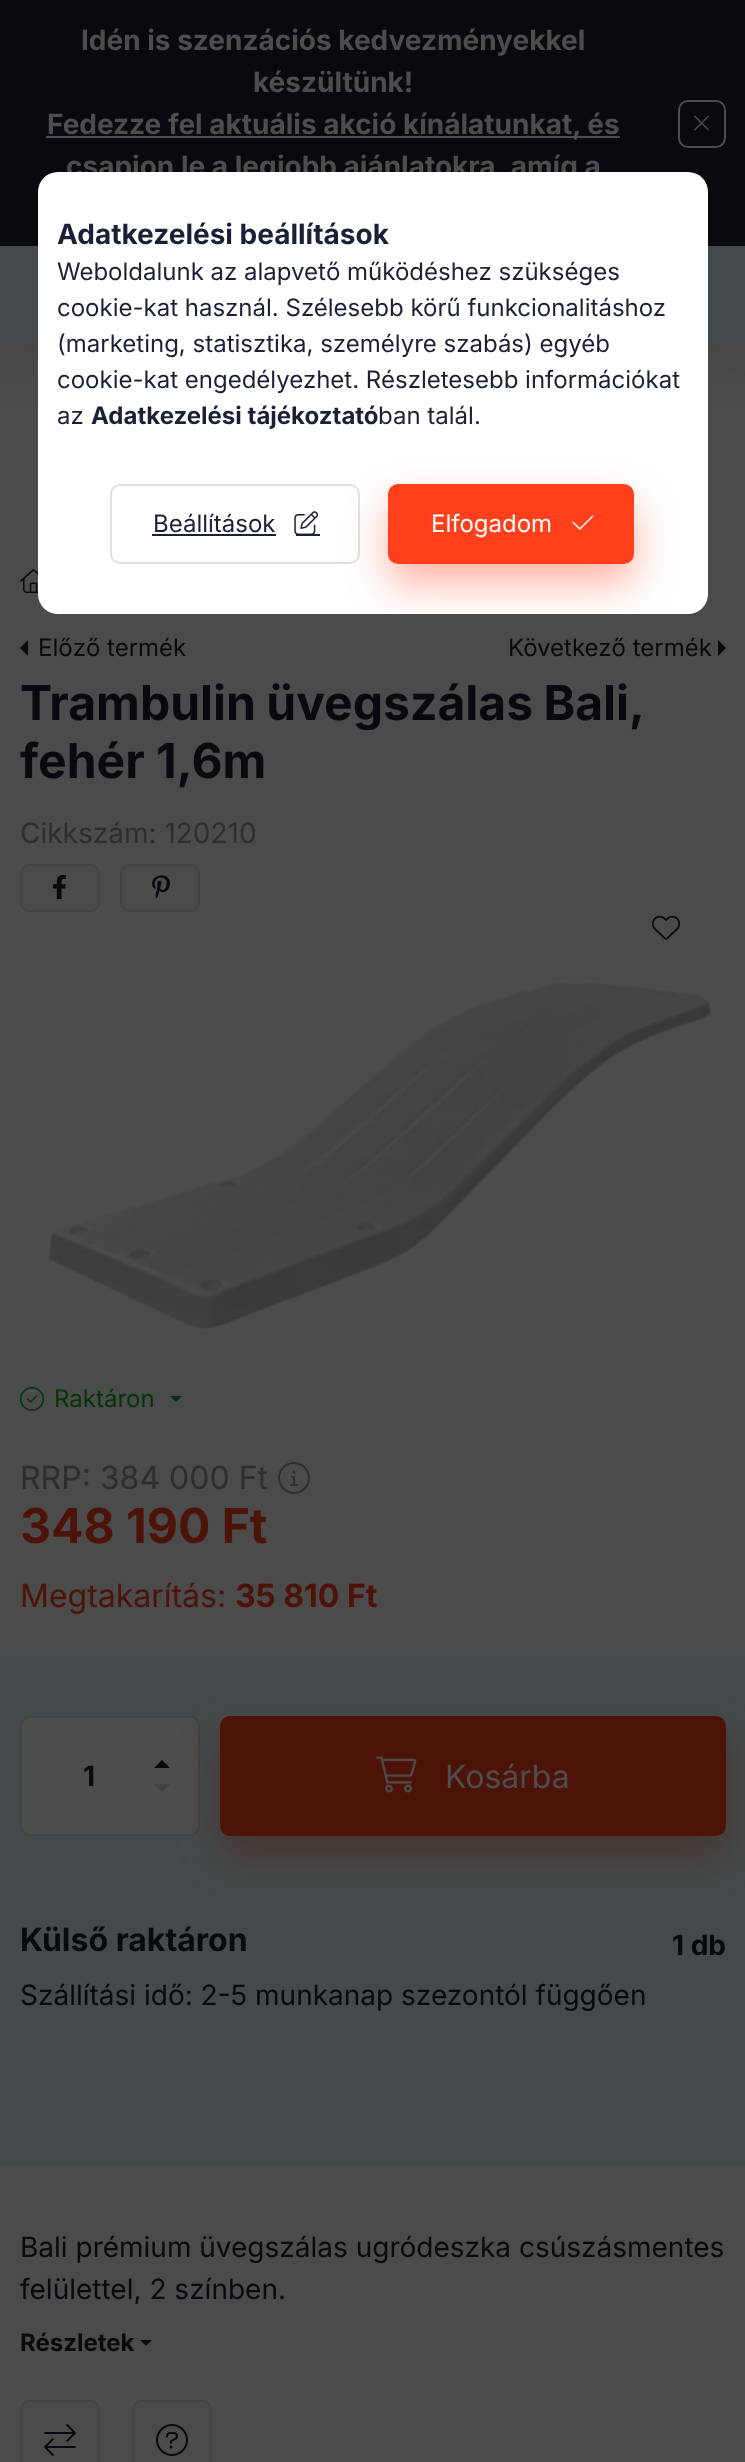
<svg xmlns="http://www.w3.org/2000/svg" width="745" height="2462">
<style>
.a{font:bold 28px Inter;fill:#4d4d4d}
.b{font:24px Inter;fill:#080a10}
.c{font:bold 48px Inter;fill:#080a10}
.d{font:28px Inter;fill:#2e2e2e}
.e{font:24px Inter;fill:#05340a}
.f{font:32px Inter;fill:#2e2e2e}
.g{font:bold 48px Inter;fill:#4d1308}
.h{font:32px Inter;fill:#4d1308}
.i{font:bold 32px Inter;fill:#4d1308}
.j{font:bold 28px Inter;fill:#080a10}
.k{font:32px Inter;fill:#4d4d4d}
.l{font:bold 32px Inter;fill:#080a10}
.m{font:28px Inter;fill:#080a10}
.n{font:bold 24px Inter;fill:#080a10}
.o{font:bold 28px Inter;fill:#1b2036}
.p{font:24px Inter;fill:#1b2036}
.q{font:bold 24px Inter;fill:#1b2036}
.r{font:24px Inter;fill:#fff}
</style>
<defs>
<clipPath id="clip1"><rect x="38" y="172" width="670" height="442" rx="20"/></clipPath>
</defs>
<rect width="100%" height="100%" fill="#4b4b4b"/>
<path fill="#4d130833" filter="blur(30px)" d="M0 246h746v100H0z"/>
<path fill="#080a10" d="M0 0h745v246H0z"/>
<path fill="#4d4d4d" d="M46 136h574v2H46z"/>
<rect fill="none" stroke="#4d4d4d" stroke-width="2" x="679" y="101" width="46" height="46" rx="9"/>
<image href="1.png" x="694" y="115" width="15" height="16"/>
<path fill="#444a4c" d="M0 246h745v100H0z"/>
<image href="2.png" x="20" y="569" width="18" height="24"/>
<path fill="#080a10" d="M28 656v-16l-8 8z"/>
<path fill="#080a10" d="M718 656v-16l8 8z"/>
<rect fill="none" stroke="#444" stroke-width="2" x="21" y="865" width="78" height="46" rx="9"/>
<image href="3.png" x="53" y="875" width="13" height="24"/>
<rect fill="none" stroke="#444" stroke-width="2" x="121" y="865" width="78" height="46" rx="9"/>
<image href="4.png" x="152" y="875" width="18" height="24"/>
<image href="5.png" x="652" y="915" width="28" height="25"/>
<image href="6.png" x="48" y="981" width="667" height="350"/>
<image href="7.png" x="20" y="1387" width="24" height="24"/>
<path fill="#05340a" d="M170 1396h12l-6 6z"/>
<image href="8.png" x="278" y="1462" width="32" height="32"/>
<path fill="#444a4c" d="M0 1656h745v510H0z"/>
<rect fill="#4d4d4d" stroke="#444" stroke-width="2" x="21" y="1717" width="178" height="118" rx="9"/>
<path fill="#080a10" d="M170 1768h-16l8-8z"/>
<path fill="#424242" d="M154 1784h16l-8 8z"/>
<rect fill="#4d130866" filter="blur(20px)" x="220" y="1736" width="506" height="120" rx="10"/>
<rect fill="#4d1308" x="220" y="1716" width="506" height="120" rx="10"/>
<image href="9.png" x="376" y="1756" width="41" height="37"/>
<path fill="#080a10" d="M140 2340h12l-6 6z"/>
<rect fill="none" stroke="#444" stroke-width="2" x="21" y="2401" width="78" height="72" rx="9"/>
<image href="10.png" x="44" y="2424" width="32" height="32"/>
<rect fill="none" stroke="#444" stroke-width="2" x="133" y="2401" width="78" height="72" rx="9"/>
<image href="11.png" x="156" y="2424" width="32" height="32"/>
<text class="a" x="81" y="50">Idén is szenzációs kedvezményekkel</text>
<text class="a" x="253" y="92">készültünk!</text>
<text class="a" x="47" y="134">Fedezze fel aktuális akció kínálatunkat, és</text>
<text class="a" x="66" y="176">csapjon le a legjobb ajánlatokra, amíg a</text>
<text class="b" x="38" y="656">Előző termék</text>
<text class="b" x="508" y="656">Következő termék</text>
<text class="c" x="20" y="720" word-spacing="-1">Trambulin üvegszálas Bali,</text>
<text class="c" x="20" y="778">fehér 1,6m</text>
<text class="d" x="20" y="843">Cikkszám: 120210</text>
<text class="e" x="54" y="1407">Raktáron</text>
<text class="f" x="20" y="1489">RRP: 384 000 Ft</text>
<text class="g" x="20" y="1543">348 190 Ft</text>
<text class="h" x="20" y="1607">Megtakarítás:</text>
<text class="i" x="235" y="1607">35 810 Ft</text>
<text class="j" x="83" y="1786">1</text>
<text class="k" x="445" y="1788">Kosárba</text>
<text class="l" x="20" y="1951">Külső raktáron</text>
<text class="j" x="672" y="1955">1 db</text>
<text class="m" x="20" y="2005">Szállítási idő: 2-5 munkanap szezontól függően</text>
<text class="m" x="20" y="2257">Bali prémium üvegszálas ugródeszka csúszásmentes</text>
<text class="m" x="20" y="2299">felülettel, 2 színben.</text>
<text class="n" x="20" y="2351">Részletek</text>
<rect fill="#fff" x="38" y="172" width="670" height="442" rx="20"/>
<text class="o" x="57" y="244">Adatkezelési beállítások</text>
<text class="p" x="57" y="280">Weboldalunk az alapvető működéshez szükséges</text>
<text class="p" x="57" y="316">cookie-kat használ. Szélesebb körű funkcionalitáshoz</text>
<text class="p" x="57" y="352">(marketing, statisztika, személyre szabás) egyéb</text>
<text class="p" x="57" y="388">cookie-kat engedélyezhet. Részletesebb információkat</text>
<text class="p" x="57" y="424">az</text>
<text class="q" x="91" y="424">Adatkezelési tájékoztató</text>
<text class="p" x="378" y="424">ban talál.</text>
<rect fill="none" stroke="#e1e1e1" stroke-width="2" x="111" y="485" width="248" height="78" rx="9"/>
<text class="p" x="153" y="532">Beállítások</text>
<path fill="#1b2036" d="M152 534h124v2H152z"/>
<path fill="#1b2036" d="M296 534h24v2H296z"/>
<image href="12.png" x="294" y="511" width="25" height="24"/>
<g clip-path="url(#clip1)">
<rect fill="#ff401b66" filter="blur(20px)" x="388" y="504" width="246" height="80" rx="10"/>
</g>
<rect fill="#ff401b" stroke="#ff401b" stroke-width="2" x="389" y="485" width="244" height="78" rx="9"/>
<text class="r" x="431" y="532">Elfogadom</text>
<image href="13.png" x="572" y="515" width="22" height="15"/>
</svg>
